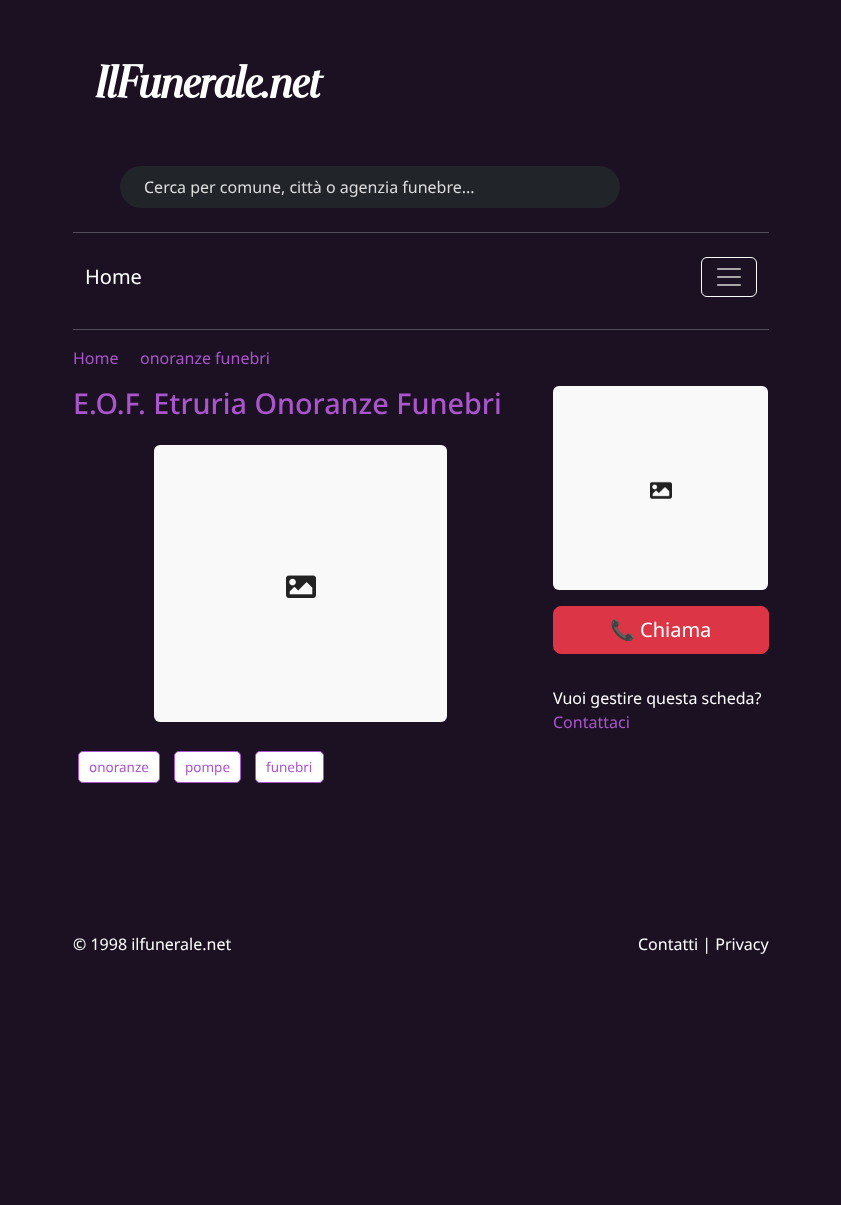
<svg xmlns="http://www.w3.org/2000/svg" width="841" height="1205">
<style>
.a{font:16px Noto Sans;fill:#ddd}
.b{font:20px Noto Sans;fill:#fff}
.c{font:16px Noto Sans;fill:#a5c}
.d{font:500 28.75px Noto Sans;fill:#a5c}
.e{font:13.5px Noto Sans;fill:#a5c}
.f{font:20px Noto Color Emoji;fill:#fff}
.g{font:16px Noto Sans;fill:#fff}
</style>
<rect width="100%" height="100%" fill="#1b1123"/>
<image href="1.png" x="95" y="64" width="230" height="34"/>
<rect fill="#212529" x="120" y="166" width="500" height="42" rx="21"/>
<path fill="#544d5a" d="M73 232h696v1H73z"/>
<rect fill="none" stroke="#fff" x="701.5" y="257.5" width="55" height="39" rx="5.5"/>
<image href="2.png" x="717" y="268" width="24" height="18"/>
<path fill="#544d5a" d="M73 329h696v1H73z"/>
<image href="3.png" x="154" y="445" width="293" height="277"/>
<rect fill="#fff" stroke="#a5c" x="78.5" y="751.5" width="81" height="31" rx="4.5"/>
<rect fill="#fff" stroke="#a5c" x="174.5" y="751.5" width="66" height="31" rx="4.5"/>
<rect fill="#fff" stroke="#a5c" x="255.5" y="751.5" width="68" height="31" rx="4.5"/>
<image href="4.png" x="553" y="386" width="215" height="204"/>
<rect fill="#dc3545" stroke="#dc3545" x="553.5" y="606.5" width="215" height="47" rx="7.5"/>
<text class="a" x="144" y="193">Cerca per comune, città o agenzia funebre...</text>
<text class="b" x="85" y="284">Home</text>
<text class="c" x="73" y="364">Home</text>
<text class="c" x="140" y="364">onoranze funebri</text>
<text class="d" x="73" y="414">E.O.F. Etruria Onoranze Funebri</text>
<text class="e" x="89" y="772">onoranze</text>
<text class="e" x="185" y="772">pompe</text>
<text class="e" x="266" y="772">funebri</text>
<text class="f" x="610" y="637">📞</text>
<text class="b" x="640" y="637">Chiama</text>
<text class="g" x="553" y="704">Vuoi gestire questa scheda?</text>
<text class="c" x="553" y="728">Contattaci</text>
<text class="g" x="73" y="950">© 1998 ilfunerale.net</text>
<text class="g" x="638" y="950">Contatti | Privacy</text>
</svg>
